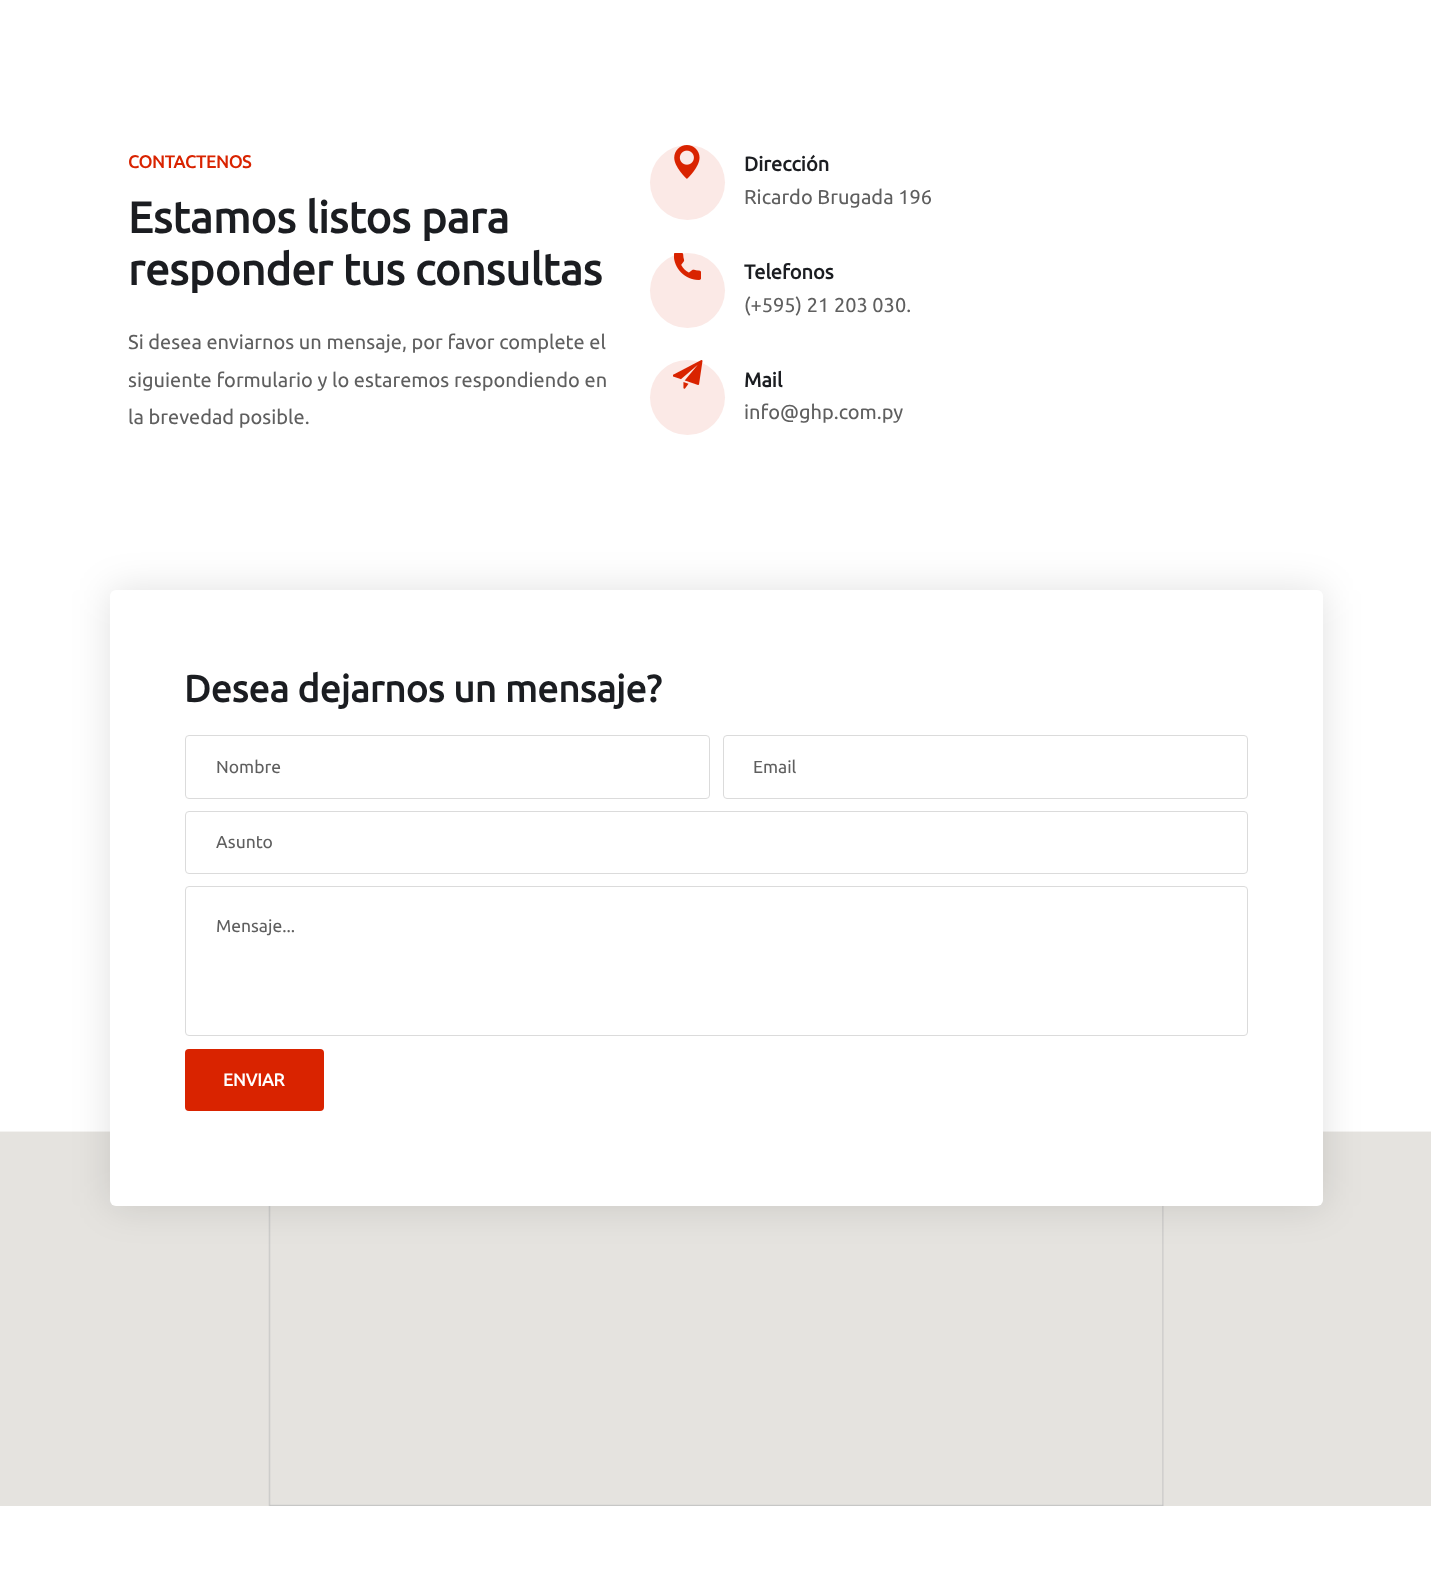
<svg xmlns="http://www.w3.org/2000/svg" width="1431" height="1573">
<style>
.a{font:bold 17.5px Ubuntu;fill:#d92300}
.b{font:bold 43.75px Ubuntu;fill:#1b1d21}
.c{font:20px Ubuntu;fill:#5f5f5f}
.d{font:bold 20px Ubuntu;fill:#1b1d21}
.e{font:bold 37.5px Ubuntu;fill:#1b1d21}
.f{font:17.5px Ubuntu;fill:#5f5f5f}
.g{font:bold 17.5px Ubuntu;fill:#fff}
</style>
<rect width="100%" height="100%" fill="#fff"/>
<circle fill="#fbe9e6" cx="687.5" cy="182.5" r="37.5"/>
<image href="1.png" x="674" y="145" width="26" height="34"/>
<circle fill="#fbe9e6" cx="687.5" cy="290.5" r="37.5"/>
<image href="2.png" x="674" y="253" width="27" height="27"/>
<circle fill="#fbe9e6" cx="687.5" cy="397.5" r="37.5"/>
<image href="3.png" x="673" y="360" width="30" height="29"/>
<image href="4.png" x="0" y="1131" width="1431" height="375"/>
<rect fill="#0000001f" filter="blur(19px)" x="110" y="590" width="1213" height="616" rx="6"/>
<rect fill="#fff" x="110" y="590" width="1213" height="616" rx="6"/>
<rect fill="none" stroke="#dbdbdb" x="185.5" y="735.5" width="524" height="63" rx="3.5"/>
<rect fill="none" stroke="#dbdbdb" x="723.5" y="735.5" width="524" height="63" rx="3.5"/>
<rect fill="none" stroke="#dbdbdb" x="185.5" y="811.5" width="1062" height="62" rx="3.5"/>
<rect fill="none" stroke="#dbdbdb" x="185.5" y="886.5" width="1062" height="149" rx="3.5"/>
<rect fill="#d92300" x="185" y="1049" width="139" height="62" rx="4"/>
<text class="a" x="128" y="168">CONTACTENOS</text>
<text class="b" x="128" y="233">Estamos listos para</text>
<text class="b" x="128" y="285">responder tus consultas</text>
<text class="c" x="128" y="349">Si desea enviarnos un mensaje, por favor complete el</text>
<text class="c" x="128" y="387">siguiente formulario y lo estaremos respondiendo en</text>
<text class="c" x="128" y="424">la brevedad posible.</text>
<text class="d" x="744" y="171">Dirección</text>
<text class="c" x="744" y="204">Ricardo Brugada 196</text>
<text class="d" x="744" y="279">Telefonos</text>
<text class="c" x="744" y="312">(+595) 21 203 030.</text>
<text class="d" x="744" y="387">Mail</text>
<text class="c" x="744" y="419">info@ghp.com.py</text>
<text class="e" x="184" y="702">Desea dejarnos un mensaje?</text>
<text class="f" x="216" y="773">Nombre</text>
<text class="f" x="753" y="773">Email</text>
<text class="f" x="216" y="848">Asunto</text>
<text class="f" x="216" y="932">Mensaje...</text>
<text class="g" x="223" y="1086">ENVIAR</text>
</svg>
